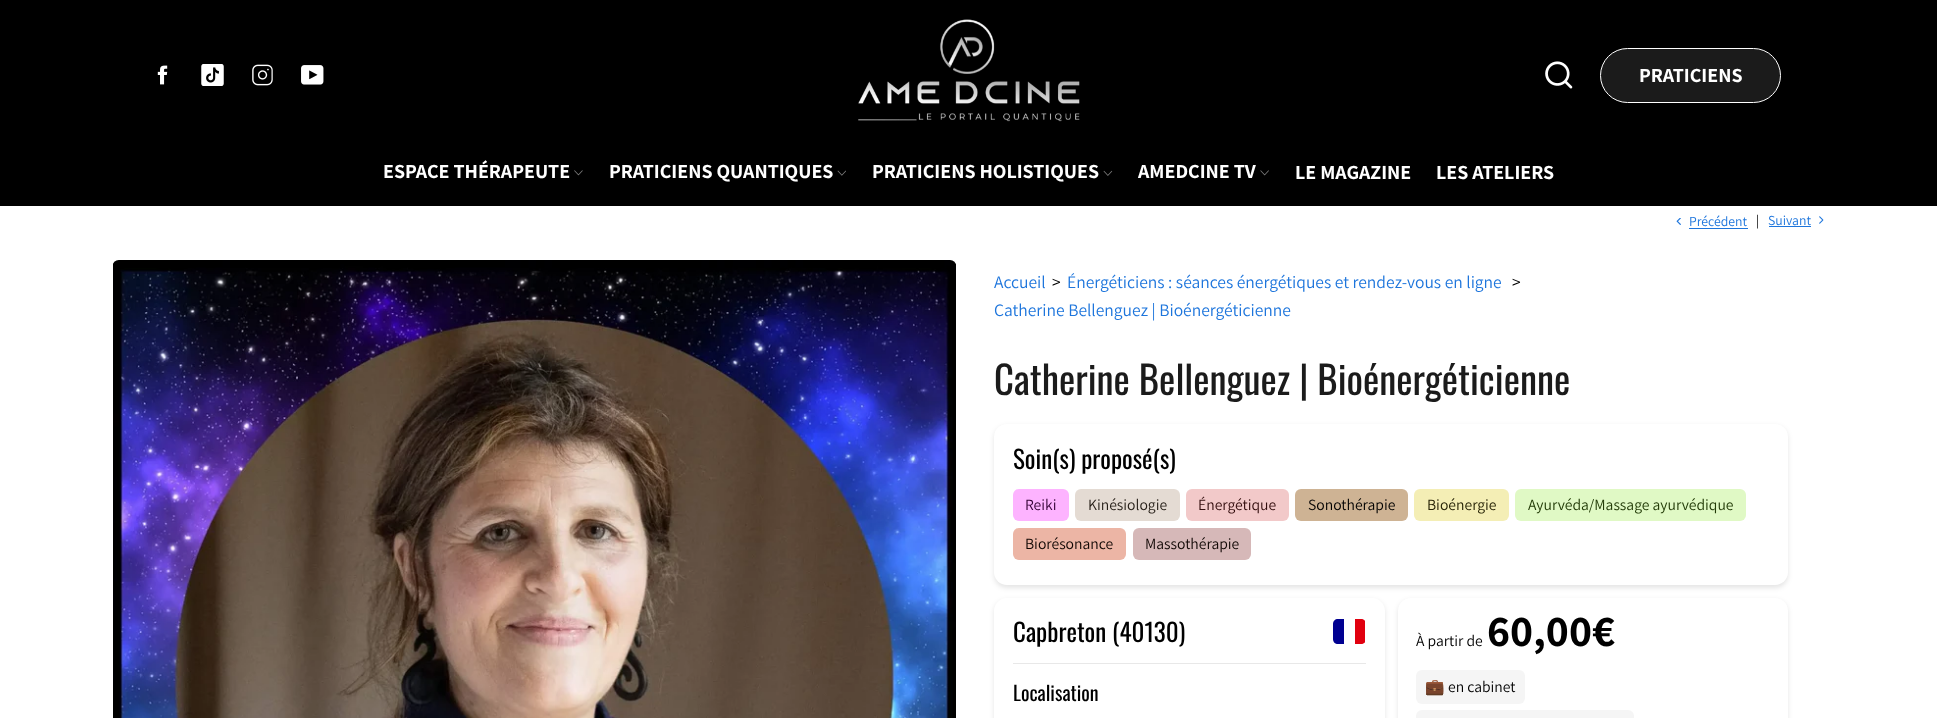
<svg xmlns="http://www.w3.org/2000/svg" width="1937" height="718">
<style>
.a{font:bold 20px Assistant;fill:#fff}
.b{font:13.75px Assistant;fill:#1d75dc}
.c{font:13.75px Assistant;fill:#000}
.d{font:17.5px Assistant;fill:#1d75dc}
.e{font:17.5px Assistant;fill:#000}
.f{font:38.75px Oswald;fill:#1b1b1b}
.g{font:25px Oswald;fill:#000}
.h{font:15.6px Assistant;fill:#320033}
.i{font:15.6px Assistant;fill:#231c15}
.j{font:15.6px Assistant;fill:#310c0c}
.k{font:15.6px Assistant;fill:#000}
.l{font:15.6px Assistant;fill:#252205}
.m{font:15.6px Assistant;fill:#213a06}
.n{font:15.6px Assistant;fill:#0f0603}
.o{font:20px Oswald;fill:#000}
.p{font:bold 44px Assistant;fill:#000}
.q{font:15.6px Noto Color Emoji;fill:#000}
</style>
<defs>
<clipPath id="clip1"><path d="M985 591h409v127h-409zm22 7h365c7 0 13 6 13 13v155c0 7-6 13-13 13h-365c-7 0-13-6-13-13v-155c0-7 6-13 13-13z" clip-rule="evenodd"/></clipPath>
<clipPath id="clip2"><path d="M1333 619h32v25H1333z"/></clipPath>
</defs>
<rect width="100%" height="100%" fill="#fff"/>
<path fill="#000" d="M0 0h1937v206H0z"/>
<image href="1.png" x="157" y="65" width="11" height="20"/>
<image href="2.png" x="201" y="64" width="23" height="22"/>
<image href="3.png" x="252" y="64" width="21" height="22"/>
<image href="4.png" x="301" y="65" width="23" height="20"/>
<image href="5.png" x="858" y="19" width="222" height="103"/>
<image href="6.png" x="1545" y="61" width="28" height="28"/>
<rect fill="#1b1b1b" stroke="#fff" x="1600.5" y="48.5" width="180" height="54" rx="27"/>
<image href="7.png" x="574" y="170" width="9" height="6"/>
<image href="8.png" x="837" y="170" width="9" height="6"/>
<image href="9.png" x="1103" y="170" width="10" height="6"/>
<image href="10.png" x="1260" y="170" width="9" height="6"/>
<image href="11.png" x="1676" y="218" width="5" height="7"/>
<path fill="#1d75dc" d="M1689 228h59v1H1689z"/>
<path fill="#1d75dc" d="M1769 226h42v1H1769z"/>
<image href="12.png" x="1819" y="216" width="5" height="8"/>
<image href="13.png" x="113" y="260" width="843" height="458"/>
<rect fill="#0000001a" filter="blur(2.5px)" x="994" y="426" width="794" height="162" rx="13"/>
<rect fill="#fff" x="994" y="424" width="794" height="161" rx="13"/>
<rect fill="#fdb3ff" x="1013" y="489" width="56" height="32" rx="6"/>
<rect fill="#e4dbd3" x="1075" y="489" width="105" height="32" rx="6"/>
<rect fill="#f2c9c9" x="1186" y="489" width="103" height="32" rx="6"/>
<rect fill="#ceb394" x="1295" y="489" width="113" height="32" rx="6"/>
<rect fill="#f4eeb5" x="1414" y="489" width="95" height="32" rx="6"/>
<rect fill="#e0f9c5" x="1515" y="489" width="231" height="32" rx="6"/>
<rect fill="#ecb5a5" x="1013" y="528" width="113" height="32" rx="6"/>
<rect fill="#d6b8b8" x="1133" y="528" width="118" height="32" rx="6"/>
<g clip-path="url(#clip1)">
<rect fill="#0000001a" filter="blur(2.5px)" x="994" y="600" width="391" height="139" rx="13"/>
</g>
<path fill="#000091" d="M1338 619h6v25h-6c-3 0-5-2-5-5v-15c0-3 2-5 5-5z"/>
<g clip-path="url(#clip2)">
<path fill="#e1000f" d="M1355 619h6c3 0 5 2 5 5v15c0 3-2 5-5 5h-6z"/>
</g>
<path fill="#e8e8e8" d="M1013 663h353v1H1013z"/>
<rect fill="#0000001a" filter="blur(2.5px)" x="1398" y="600" width="390" height="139" rx="13"/>
<rect fill="#fff" x="1398" y="598" width="390" height="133" rx="13"/>
<rect fill="#f5f5f5" x="1416" y="670" width="109" height="34" rx="6"/>
<rect fill="#f5f5f5" x="1416" y="710" width="218" height="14" rx="6"/>
<text class="a" x="1639" y="82">PRATICIENS</text>
<text class="a" x="383" y="178">ESPACE THÉRAPEUTE</text>
<text class="a" x="609" y="178">PRATICIENS QUANTIQUES</text>
<text class="a" x="872" y="178">PRATICIENS HOLISTIQUES</text>
<text class="a" x="1138" y="178">AMEDCINE TV</text>
<text class="a" x="1295" y="179">LE MAGAZINE</text>
<text class="a" x="1436" y="179">LES ATELIERS</text>
<text class="b" x="1689" y="226">Précédent</text>
<text class="c" x="1756" y="225">|</text>
<text class="b" x="1768" y="225">Suivant</text>
<text class="d" x="994" y="288">Accueil</text>
<text class="e" x="1052" y="288">&gt;</text>
<text class="d" x="1067" y="288">Énergéticiens : séances énergétiques et rendez-vous en ligne</text>
<text class="e" x="1512" y="288">&gt;</text>
<text class="d" x="994" y="316">Catherine Bellenguez | Bioénergéticienne</text>
<text class="f" x="994" y="395">Catherine Bellenguez | Bioénergéticienne</text>
<text class="g" x="1013" y="469">Soin(s) proposé(s)</text>
<text class="h" x="1025" y="510">Reiki</text>
<text class="i" x="1088" y="510">Kinésiologie</text>
<text class="j" x="1198" y="510">Énergétique</text>
<text class="k" x="1308" y="510">Sonothérapie</text>
<text class="l" x="1427" y="510">Bioénergie</text>
<text class="m" x="1528" y="510">Ayurvéda/Massage ayurvédique</text>
<text class="n" x="1025" y="549">Biorésonance</text>
<text class="n" x="1145" y="549">Massothérapie</text>
<text class="g" x="1013" y="642">Capbreton (40130)</text>
<text class="o" x="1013" y="701">Localisation</text>
<text class="k" x="1416" y="646">À partir de</text>
<text class="p" x="1487" y="646">60,00€</text>
<text class="q" x="1425" y="692">💼</text>
<text class="k" x="1448" y="692">en cabinet</text>
</svg>
